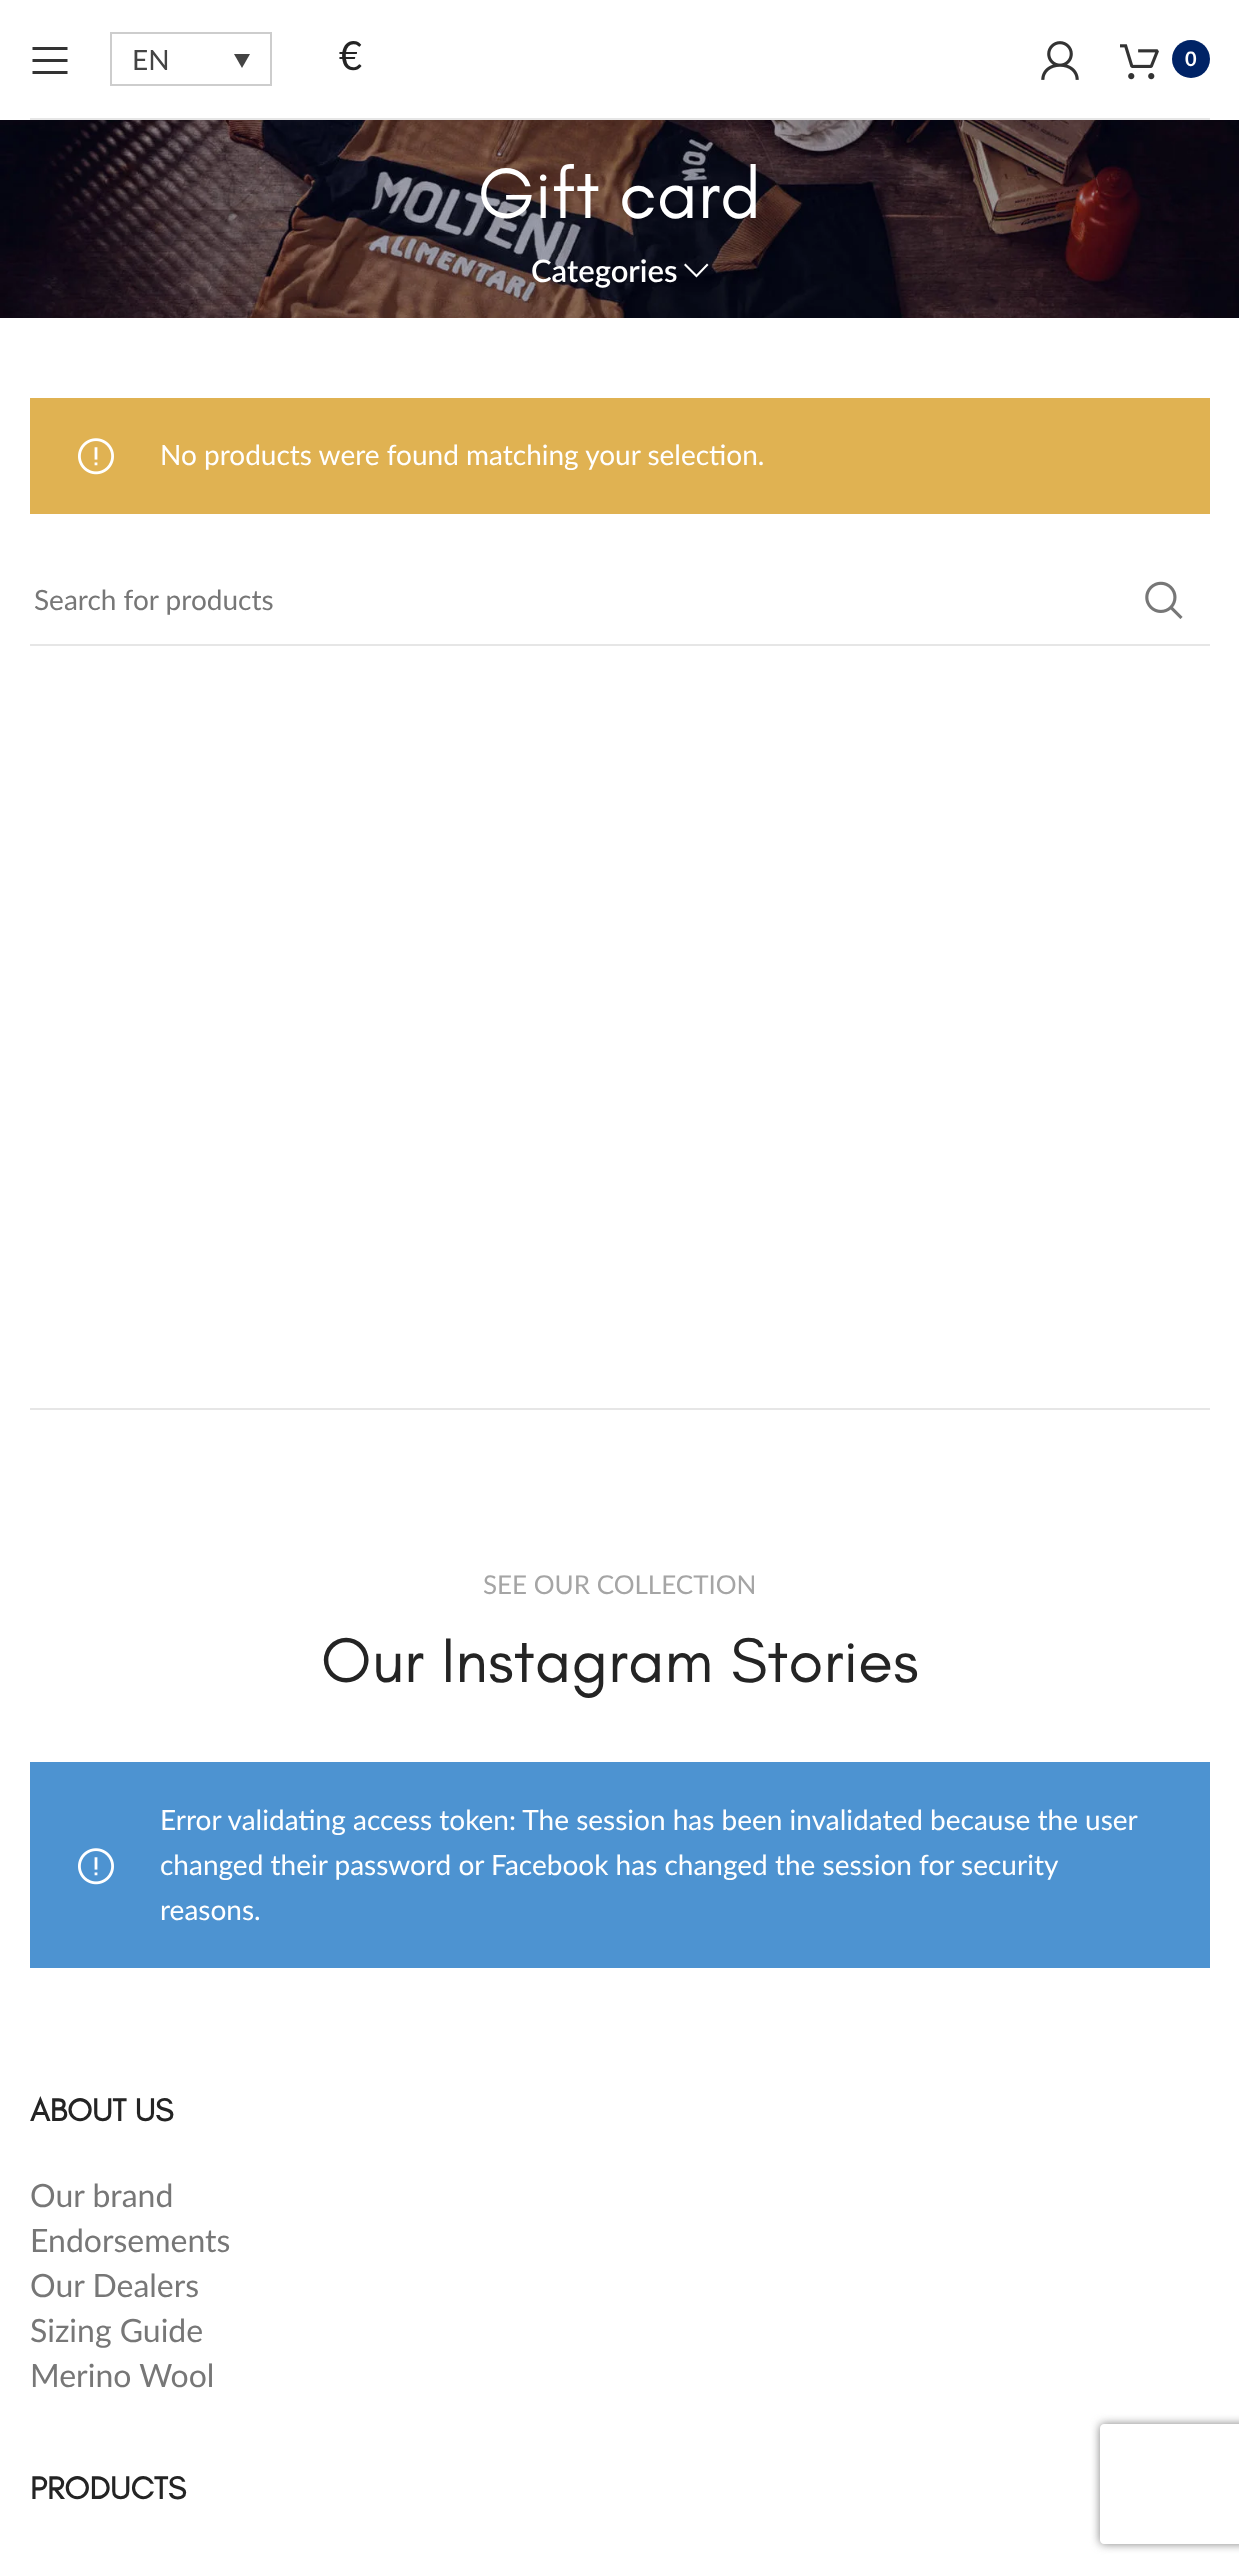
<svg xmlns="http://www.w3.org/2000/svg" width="1239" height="2572">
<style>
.a{font:28px Lato;fill:#444}
.b{font:40px Lato;fill:#242424}
.c{font:bold 20px Lato;fill:#fff}
.d{font:72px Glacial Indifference;fill:#fff}
.e{font:600 31px Lato;fill:#fff}
.f{font:28px Lato;fill:#fff}
.g{font:28px Lato;fill:#777}
.h{font:26px Lato;fill:#a5a5a5}
.i{font:64px Glacial Indifference;fill:#242424}
.j{font:bold 32px Glacial Indifference;fill:#242424}
.k{font:32px Lato;fill:#777}
</style>
<defs>
<clipPath id="clip1"><path d="M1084 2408h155v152h-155zm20 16h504c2 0 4 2 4 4v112c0 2-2 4-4 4h-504c-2 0-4-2-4-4v-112c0-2 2-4 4-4z" clip-rule="evenodd"/></clipPath>
</defs>
<rect width="100%" height="100%" fill="#fff"/>
<path fill="#e6e6e6" d="M30 118h1180v2H30z"/>
<path fill="#333" d="M32.5 50h35v-3h-35zm0 12h35v-3h-35zm0 12h35v-3h-35z"/>
<path fill="none" stroke="#cdcdcd" stroke-width="2" d="M111 33h160v52H111z"/>
<path fill="#444" d="M234 54h16l-8 14z"/>
<image href="1.png" x="1041" y="41" width="38" height="39"/>
<image href="2.png" x="1120" y="44" width="39" height="36"/>
<circle fill="#002366" cx="1191" cy="59" r="19"/>
<image href="3.png" x="0" y="120" width="1239" height="198"/>
<path fill="#fff" d="M707 263.5l-10.5 11l-11-11l-1.5 1.5l12.5 12.5l12-12.5z"/>
<path fill="#e0b252" d="M30 398h1180v116H30z"/>
<image href="4.png" x="78" y="438" width="36" height="37"/>
<path fill="#e6e6e6" d="M30 644h1180v2H30z"/>
<image href="5.png" x="1145" y="581" width="38" height="38"/>
<path fill="#e6e6e6" d="M30 1408h1180v2H30z"/>
<path fill="#4d93d1" d="M30 1762h1180v206H30z"/>
<image href="6.png" x="78" y="1848" width="36" height="37"/>
<g clip-path="url(#clip1)">
<rect fill="#808080" filter="blur(5px)" x="1100" y="2424" width="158" height="120" rx="4"/>
</g>
<text class="a" x="132" y="70">EN</text>
<text class="b" x="339" y="70">€</text>
<text class="c" x="1185" y="66">0</text>
<text class="d" x="478" y="218">Gift card</text>
<text class="e" x="531" y="282">Categories</text>
<text class="f" x="160" y="465">No products were found matching your selection.</text>
<text class="g" x="34" y="610">Search for products</text>
<text class="h" x="483" y="1594">SEE OUR COLLECTION</text>
<text class="i" x="321" y="1682">Our Instagram Stories</text>
<text class="f" x="160" y="1830">Error validating access token: The session has been invalidated because the user</text>
<text class="f" x="160" y="1875">changed their password or Facebook has changed the session for security</text>
<text class="f" x="160" y="1920">reasons.</text>
<text class="j" x="30" y="2121">ABOUT US</text>
<text class="k" x="30" y="2207">Our brand</text>
<text class="k" x="30" y="2252">Endorsements</text>
<text class="k" x="30" y="2297">Our Dealers</text>
<text class="k" x="30" y="2342">Sizing Guide</text>
<text class="k" x="30" y="2387">Merino Wool</text>
<text class="j" x="30" y="2499">PRODUCTS</text>
</svg>
